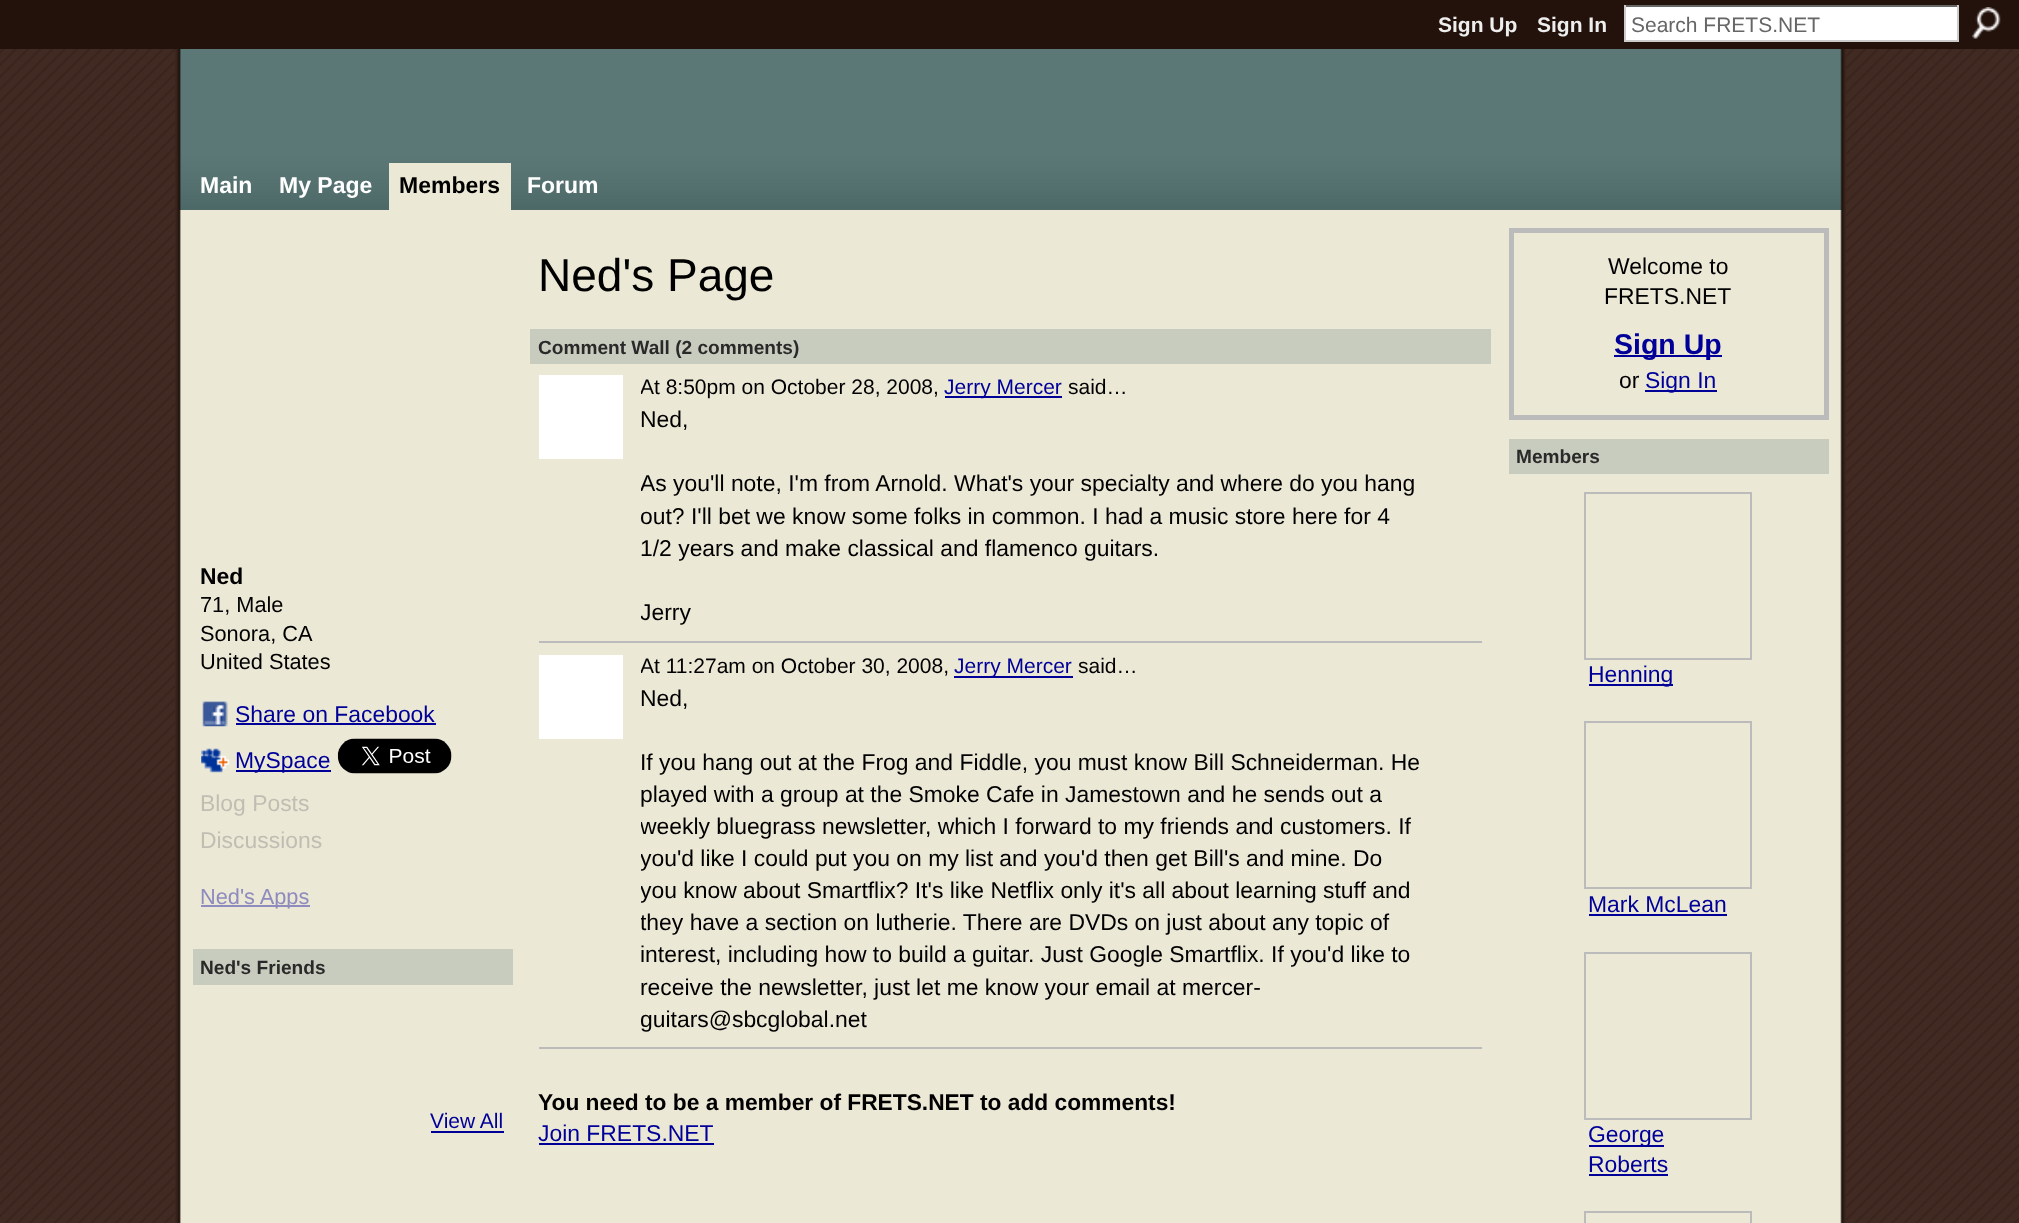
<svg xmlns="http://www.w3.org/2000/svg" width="2019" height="1223">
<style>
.a{font:bold 21px Liberation Sans;fill:#eee}
.b{font:21px Liberation Sans;fill:#666}
.c{font:bold 23px Liberation Sans;fill:#fff}
.d{font:bold 23px Liberation Sans;fill:#000}
.e{font:bold 22.9px Liberation Sans;fill:#000}
.f{font:21.75px Liberation Sans;fill:#000}
.g{font:22.9px Liberation Sans;fill:#009}
.h{font:22.9px Liberation Sans;fill:#c0beb3}
.i{font:21.75px Liberation Sans;fill:#8e8bbe}
.j{font:bold 19.1px Liberation Sans;fill:#292929}
.k{font:21px Liberation Sans;fill:#009}
.l{font:46px Liberation Sans;fill:#000}
.m{font:21px Liberation Sans;fill:#000}
.n{font:22.9px Liberation Sans;fill:#000}
.o{font:bold 22.75px Liberation Sans;fill:#000}
.p{font:bold 28.5px Liberation Sans;fill:#009}
</style>
<defs>
<clipPath id="clip1"><path d="M641 375h780v28H641z"/></clipPath>
<clipPath id="clip2"><path d="M641 404h780v224H641z"/></clipPath>
<clipPath id="clip3"><path d="M641 655h780v26H641z"/></clipPath>
<clipPath id="clip4"><path d="M641 683h780v353H641z"/></clipPath>
</defs>
<rect width="100%" height="100%" fill="#fff"/>
<image href="1.png" x="0" y="49" width="2019" height="1174"/>
<path fill="#23120c" d="M0 0h2019v49H0z"/>
<path fill="#fff" d="M1626 7h331v33H1626z"/>
<path fill="#666" d="M1624 5h334v2H1624z"/>
<path fill="#ccc" d="M1957 5h2v37H1957z"/>
<path fill="#ccc" d="M1624 40h334v2H1624z"/>
<path fill="#ccc" d="M1624 5h2v37H1624z"/>
<image href="2.png" x="1972" y="7" width="29" height="32"/>
<image href="3.png" x="175" y="49" width="1671" height="161"/>
<path fill="#ece8d6" d="M389 163h122v47H389z"/>
<image href="4.png" x="175" y="210" width="1671" height="1013"/>
<image href="5.png" x="202" y="701" width="26" height="26"/>
<path fill="#009" d="M236 723h200v2H236z"/>
<image href="6.png" x="201" y="748" width="29" height="25"/>
<path fill="#009" d="M236 770h95v2H236z"/>
<image href="7.png" x="337" y="738" width="115" height="36"/>
<path fill="#8e8bbe" d="M201 905h109v2H201z"/>
<path fill="#c8ccbe" d="M193 949h320v36H193z"/>
<path fill="#009" d="M431 1131h73v2H431z"/>
<path fill="#c8ccbe" d="M530 329h961v35H530z"/>
<path fill="#bbb" d="M539 641h943v2H539z"/>
<path fill="#fff" d="M539 375h84v84H539z"/>
<path fill="#009" d="M945 396h117v2H945z"/>
<path fill="#bbb" d="M539 1047h943v2H539z"/>
<path fill="#fff" d="M539 655h84v84H539z"/>
<path fill="#009" d="M954 676h119v2H954z"/>
<path fill="#009" d="M539 1143h175v2H539z"/>
<path fill="none" stroke="#bbb" stroke-width="5" d="M1511.5 230.5h315v187H1511.5z"/>
<path fill="#009" d="M1614 355h108v2H1614z"/>
<path fill="#009" d="M1645 390h72v2H1645z"/>
<path fill="#c8ccbe" d="M1509 439h320v35H1509z"/>
<path fill="none" stroke="#bbb" stroke-width="2" d="M1585 493h166v166H1585z"/>
<path fill="#009" d="M1589 684h84v2H1589z"/>
<path fill="none" stroke="#bbb" stroke-width="2" d="M1585 722h166v166H1585z"/>
<path fill="#009" d="M1589 914h138v2H1589z"/>
<path fill="none" stroke="#bbb" stroke-width="2" d="M1585 953h166v166H1585z"/>
<path fill="#009" d="M1589 1145h75v2H1589z"/>
<path fill="#009" d="M1589 1174h79v2H1589z"/>
<path fill="none" stroke="#bbb" stroke-width="2" d="M1585 1212h166v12H1585z"/>
<text class="a" x="1438" y="32">Sign Up</text>
<text class="a" x="1537" y="32">Sign In</text>
<text class="b" x="1631" y="32">Search FRETS.NET</text>
<text class="c" x="200" y="193">Main</text>
<text class="c" x="279" y="193">My Page</text>
<text class="d" x="399" y="193">Members</text>
<text class="c" x="527" y="193">Forum</text>
<text class="e" x="200" y="584">Ned</text>
<text class="f" x="200" y="612">71, Male</text>
<text class="f" x="200" y="641">Sonora, CA</text>
<text class="f" x="200" y="669">United States</text>
<text class="g" x="235" y="722">Share on Facebook</text>
<text class="g" x="235" y="768">MySpace</text>
<text class="h" x="200" y="811">Blog Posts</text>
<text class="h" x="200" y="848">Discussions</text>
<text class="i" x="200" y="904">Ned's Apps</text>
<text class="j" x="200" y="974">Ned's Friends</text>
<text class="k" x="430" y="1128">View All</text>
<text class="l" x="538" y="291">Ned's Page</text>
<text class="j" x="538" y="354">Comment Wall (2 comments)</text>
<g clip-path="url(#clip1)">
<text class="m" x="640" y="394">At 8:50pm on October 28, 2008,</text>
</g>
<text class="k" x="944" y="394">Jerry Mercer</text>
<text class="m" x="1068" y="394">said…</text>
<text class="n" x="640" y="427">Ned,</text>
<g clip-path="url(#clip2)">
<text class="n" x="640" y="491">As you'll note, I'm from Arnold. What's your specialty and where do you hang</text>
<text class="n" x="640" y="524">out? I'll bet we know some folks in common. I had a music store here for 4</text>
</g>
<text class="n" x="640" y="556">1/2 years and make classical and flamenco guitars.</text>
<g clip-path="url(#clip2)">
<text class="n" x="640" y="620">Jerry</text>
</g>
<g clip-path="url(#clip3)">
<text class="m" x="640" y="673">At 11:27am on October 30, 2008,</text>
</g>
<text class="k" x="954" y="673">Jerry Mercer</text>
<text class="m" x="1078" y="673">said…</text>
<text class="n" x="640" y="706">Ned,</text>
<text class="n" x="640" y="770">If you hang out at the Frog and Fiddle, you must know Bill Schneiderman. He</text>
<text class="n" x="640" y="802">played with a group at the Smoke Cafe in Jamestown and he sends out a</text>
<g clip-path="url(#clip4)">
<text class="n" x="640" y="834">weekly bluegrass newsletter, which I forward to my friends and customers. If</text>
<text class="n" x="640" y="866">you'd like I could put you on my list and you'd then get Bill's and mine. Do</text>
<text class="n" x="640" y="898">you know about Smartflix? It's like Netflix only it's all about learning stuff and</text>
<text class="n" x="640" y="930">they have a section on lutherie. There are DVDs on just about any topic of</text>
</g>
<text class="n" x="640" y="962">interest, including how to build a guitar. Just Google Smartflix. If you'd like to</text>
<text class="n" x="640" y="995">receive the newsletter, just let me know your email at mercer-</text>
<g clip-path="url(#clip4)">
<text class="n" x="640" y="1027">guitars@sbcglobal.net</text>
</g>
<text class="o" x="538" y="1110">You need to be a member of FRETS.NET to add comments!</text>
<text class="g" x="538" y="1141">Join FRETS.NET</text>
<text class="n" x="1608" y="274">Welcome to</text>
<text class="n" x="1604" y="304">FRETS.NET</text>
<text class="p" x="1614" y="354">Sign Up</text>
<text class="n" x="1619" y="388">or</text>
<text class="g" x="1645" y="388">Sign In</text>
<text class="j" x="1516" y="463">Members</text>
<text class="g" x="1588" y="682">Henning</text>
<text class="g" x="1588" y="912">Mark McLean</text>
<text class="g" x="1588" y="1142">George</text>
<text class="g" x="1588" y="1172">Roberts</text>
</svg>
